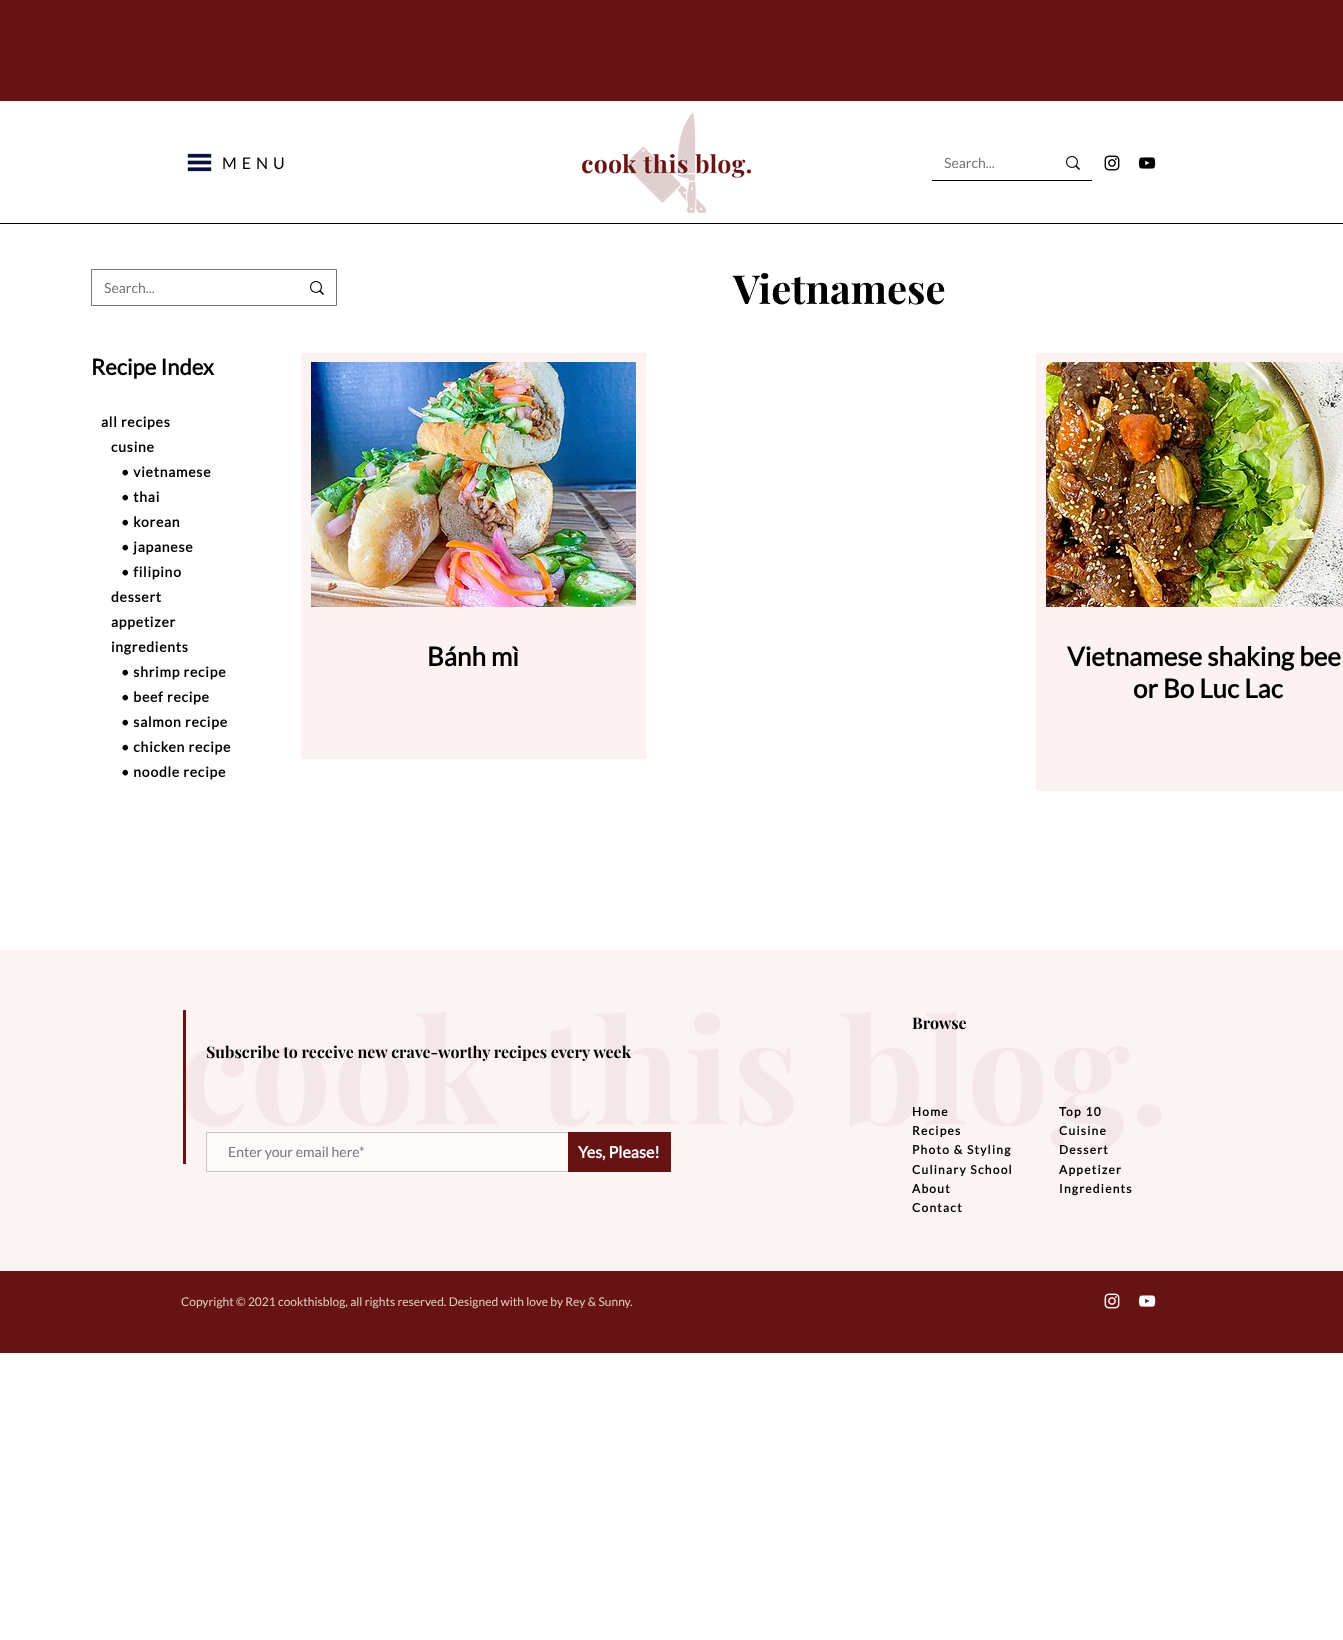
<svg xmlns="http://www.w3.org/2000/svg" width="1343" height="1640">
<style>
.a{font:16px Lato;letter-spacing:5px;fill:#000}
.b{font:14px Lato;fill:#757575}
.c{font:bold 22px Lato;fill:#000}
.d{font:bold 14px Lato;letter-spacing:0.75px;fill:#000}
.e{font:bold 40px Playfair Display;fill:#000}
.f{font:bold 26px Lato;fill:#000}
.g{font:bold 16px Playfair Display;fill:#000}
.h{font:bold 16px Lato;fill:#fff}
.i{font:bold 12px Lato;letter-spacing:1.25px;fill:#000}
.j{font:12px Lato;fill:#ded0c1}
</style>
<rect width="100%" height="100%" fill="#fff"/>
<path fill="#fcf3f3" d="M0 950h1343v321H0z"/>
<path fill="#681313" d="M0 0h1343v101H0z"/>
<image href="1.png" x="187" y="153" width="25" height="19"/>
<image href="2.png" x="582" y="113" width="169" height="100"/>
<path fill="#000" d="M932 180h160v1H932z"/>
<image href="3.png" x="1066" y="156" width="14" height="14"/>
<image href="4.png" x="1104" y="155" width="16" height="16"/>
<image href="5.png" x="1138" y="157" width="18" height="12"/>
<path fill="#000" d="M0 223h1343v1H0z"/>
<path fill="none" stroke="#757575" d="M91.5 269.5h245v36H91.5z"/>
<image href="3.png" x="310" y="281" width="14" height="14"/>
<path fill="#fcf2f2" d="M301 353h345v406H301z"/>
<image href="6.png" x="311" y="362" width="325" height="245"/>
<path fill="#fcf2f2" d="M1036 353h307v438H1036z"/>
<image href="7.png" x="1046" y="362" width="297" height="245"/>
<image href="8.png" x="182" y="1011" width="980" height="139"/>
<path fill="#681313" d="M183 1010h3v154H183z"/>
<path fill="#fefafa" d="M207 1133h361v38H207z"/>
<path fill="none" stroke="#c7c7c7" d="M206.5 1132.5h439v39H206.5z"/>
<path fill="#681313" d="M568 1132h103v40H568z"/>
<path fill="#681313" d="M0 1271h1343v82H0z"/>
<image href="9.png" x="1104" y="1293" width="16" height="16"/>
<image href="10.png" x="1138" y="1295" width="18" height="12"/>
<text class="a" x="222" y="169">MENU</text>
<text class="b" x="944" y="168">Search...</text>
<text class="b" x="104" y="293">Search...</text>
<text class="c" x="91" y="375">Recipe Index</text>
<text class="d" x="101" y="427">all recipes</text>
<text class="d" x="111" y="452">cusine</text>
<text class="d" x="121" y="477">• vietnamese</text>
<text class="d" x="121" y="502">• thai</text>
<text class="d" x="121" y="527">• korean</text>
<text class="d" x="121" y="552">• japanese</text>
<text class="d" x="121" y="577">• filipino</text>
<text class="d" x="111" y="602">dessert</text>
<text class="d" x="111" y="627">appetizer</text>
<text class="d" x="111" y="652">ingredients</text>
<text class="d" x="121" y="677">• shrimp recipe</text>
<text class="d" x="121" y="702">• beef recipe</text>
<text class="d" x="121" y="727">• salmon recipe</text>
<text class="d" x="121" y="752">• chicken recipe</text>
<text class="d" x="121" y="777">• noodle recipe</text>
<text class="e" x="733" y="304">Vietnamese</text>
<text class="f" x="427" y="666">Bánh mì</text>
<text class="f" x="1067" y="666">Vietnamese shaking bee</text>
<text class="f" x="1133" y="698">or Bo Luc Lac</text>
<text class="g" x="912" y="1029">Browse</text>
<text class="g" x="206" y="1058">Subscribe to receive new crave-worthy recipes every week</text>
<text class="b" x="228" y="1157">Enter your email here*</text>
<text class="h" x="578" y="1158">Yes, Please!</text>
<text class="i" x="912" y="1116">Home</text>
<text class="i" x="912" y="1135">Recipes</text>
<text class="i" x="912" y="1154">Photo &amp; Styling</text>
<text class="i" x="912" y="1174">Culinary School</text>
<text class="i" x="912" y="1193">About</text>
<text class="i" x="912" y="1212">Contact</text>
<text class="i" x="1059" y="1116">Top 10</text>
<text class="i" x="1059" y="1135">Cuisine</text>
<text class="i" x="1059" y="1154">Dessert</text>
<text class="i" x="1059" y="1174">Appetizer</text>
<text class="i" x="1059" y="1193">Ingredients</text>
<text class="j" x="181" y="1306">Copyright © 2021 cookthisblog, all rights reserved. Designed with love by Rey &amp; Sunny.</text>
</svg>
